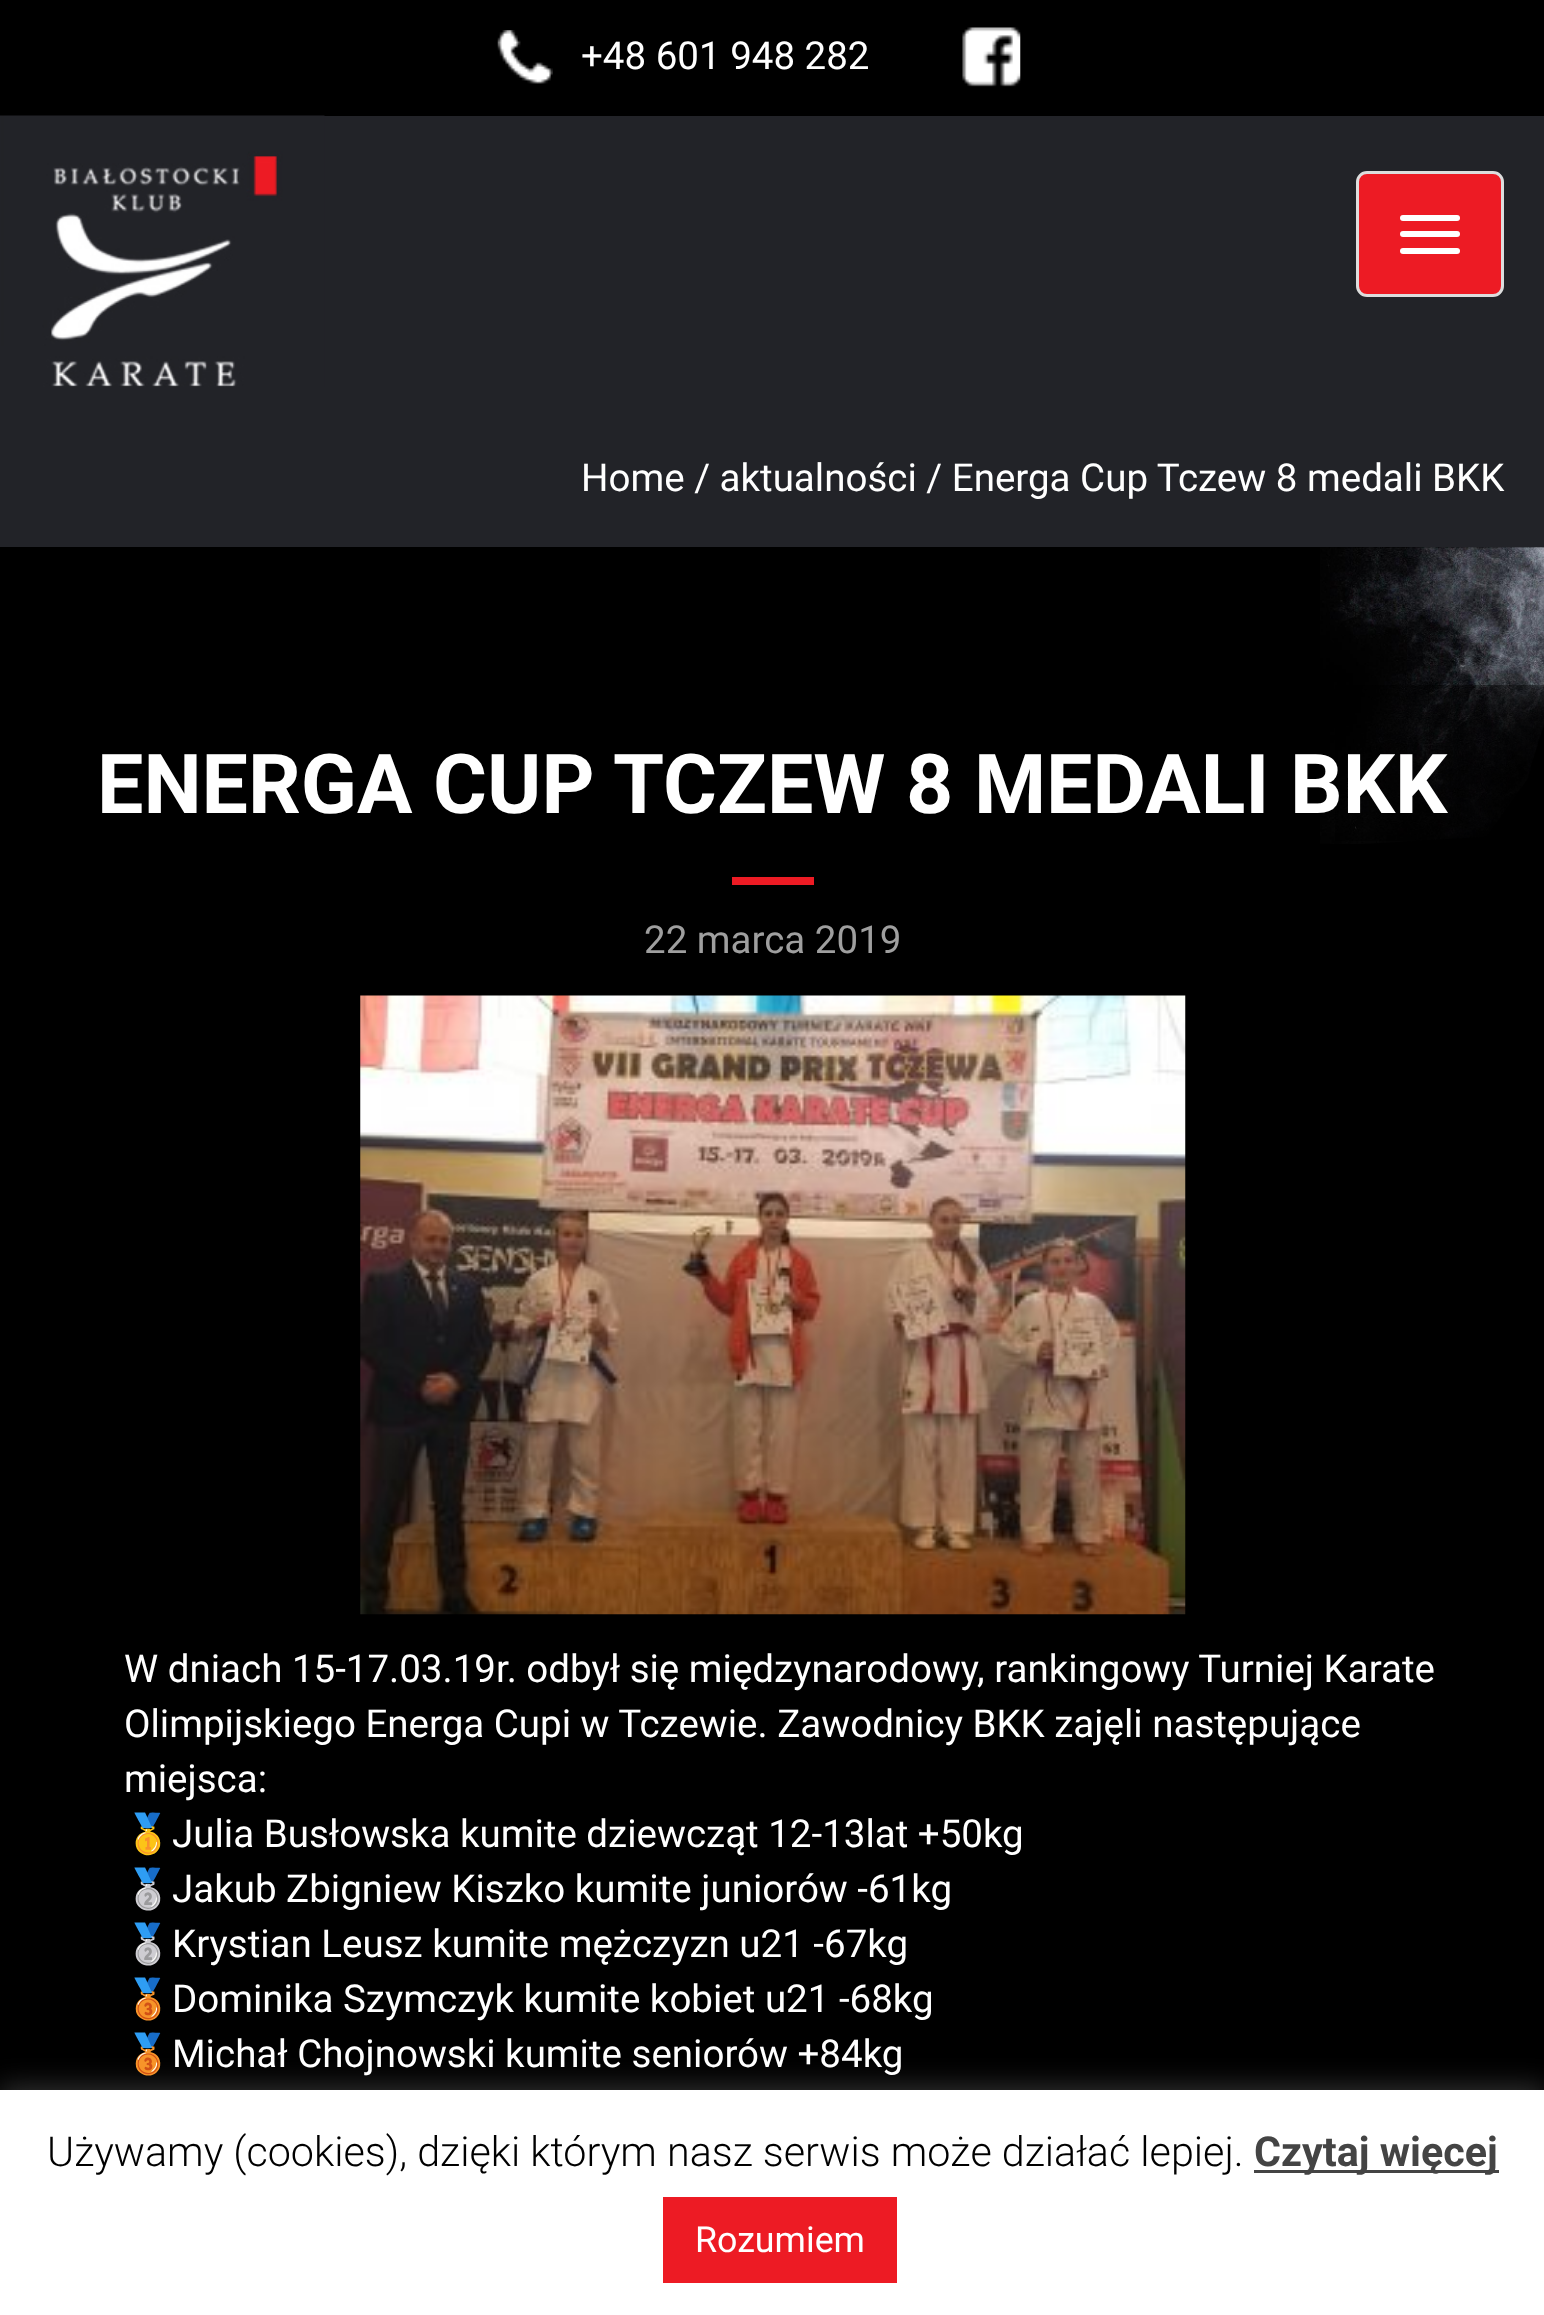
<svg xmlns="http://www.w3.org/2000/svg" width="1544" height="2315">
<style>
.a{font:38.5px Roboto;fill:#fff}
.b{font:bold 82.5px Roboto;fill:#fff}
.c{font:38.5px Roboto;fill:#9f9f9f}
.d{font:38.5px Noto Color Emoji;fill:#fff}
.e{font:300 41.25px Roboto;fill:#000}
.f{font:bold 41.25px Roboto;fill:#444}
.g{font:35.75px Roboto;fill:#fff}
</style>
<rect width="100%" height="100%" fill="#000"/>
<image href="1.png" x="497" y="30" width="56" height="54"/>
<image href="2.png" x="962" y="27" width="59" height="60"/>
<path fill="#222328" d="M0 116h1544v431H0z"/>
<image href="3.png" x="0" y="115" width="325" height="272"/>
<rect fill="#ed1b24" stroke="#ddd" stroke-width="3" x="1357.5" y="172.5" width="145" height="123" rx="9.5"/>
<rect fill="#fff" x="1400" y="215" width="60" height="6" rx="3"/>
<rect fill="#fff" x="1400" y="231" width="60" height="6" rx="3"/>
<rect fill="#fff" x="1400" y="248" width="60" height="6" rx="3"/>
<image href="4.png" x="1320" y="547" width="224" height="297"/>
<path fill="#00000066" d="M1335 685h209v156H1335z"/>
<path fill="#ed1b24" d="M732 877h82v8H732z"/>
<image href="5.png" x="360" y="995" width="826" height="620"/>
<path fill="#acabab4d" filter="blur(14px)" d="M0 2087h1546v226H0z"/>
<path fill="#fff" d="M0 2090h1544v225H0z"/>
<path fill="#444" d="M1254 2170h245v3H1254z"/>
<path fill="#ed1b24" d="M663 2197h234v86H663z"/>
<text class="a" x="581" y="69">+48 601 948 282</text>
<text class="a" x="581" y="491">Home / aktualności / Energa Cup Tczew 8 medali BKK</text>
<text class="b" x="97" y="813">ENERGA CUP TCZEW 8 MEDALI BKK</text>
<text class="c" x="644" y="953">22 marca 2019</text>
<text class="a" x="124" y="1682">W dniach 15-17.03.19r. odbył się międzynarodowy, rankingowy Turniej Karate</text>
<text class="a" x="124" y="1737">Olimpijskiego Energa Cupi w Tczewie. Zawodnicy BKK zajęli następujące</text>
<text class="a" x="124" y="1792">miejsca:</text>
<text class="d" x="124" y="1847">🥇</text>
<text class="a" x="172" y="1847">Julia Busłowska kumite dziewcząt 12-13lat +50kg</text>
<text class="d" x="124" y="1902">🥈</text>
<text class="a" x="172" y="1902">Jakub Zbigniew Kiszko kumite juniorów -61kg</text>
<text class="d" x="124" y="1957">🥈</text>
<text class="a" x="172" y="1957">Krystian Leusz kumite mężczyzn u21 -67kg</text>
<text class="d" x="124" y="2012">🥉</text>
<text class="a" x="172" y="2012">Dominika Szymczyk kumite kobiet u21 -68kg</text>
<text class="d" x="124" y="2067">🥉</text>
<text class="a" x="172" y="2067">Michał Chojnowski kumite seniorów +84kg</text>
<text class="e" x="47" y="2166">Używamy (cookies), dzięki którym nasz serwis może działać lepiej.</text>
<text class="f" x="1254" y="2166">Czytaj więcej</text>
<text class="g" x="695" y="2252">Rozumiem</text>
</svg>
